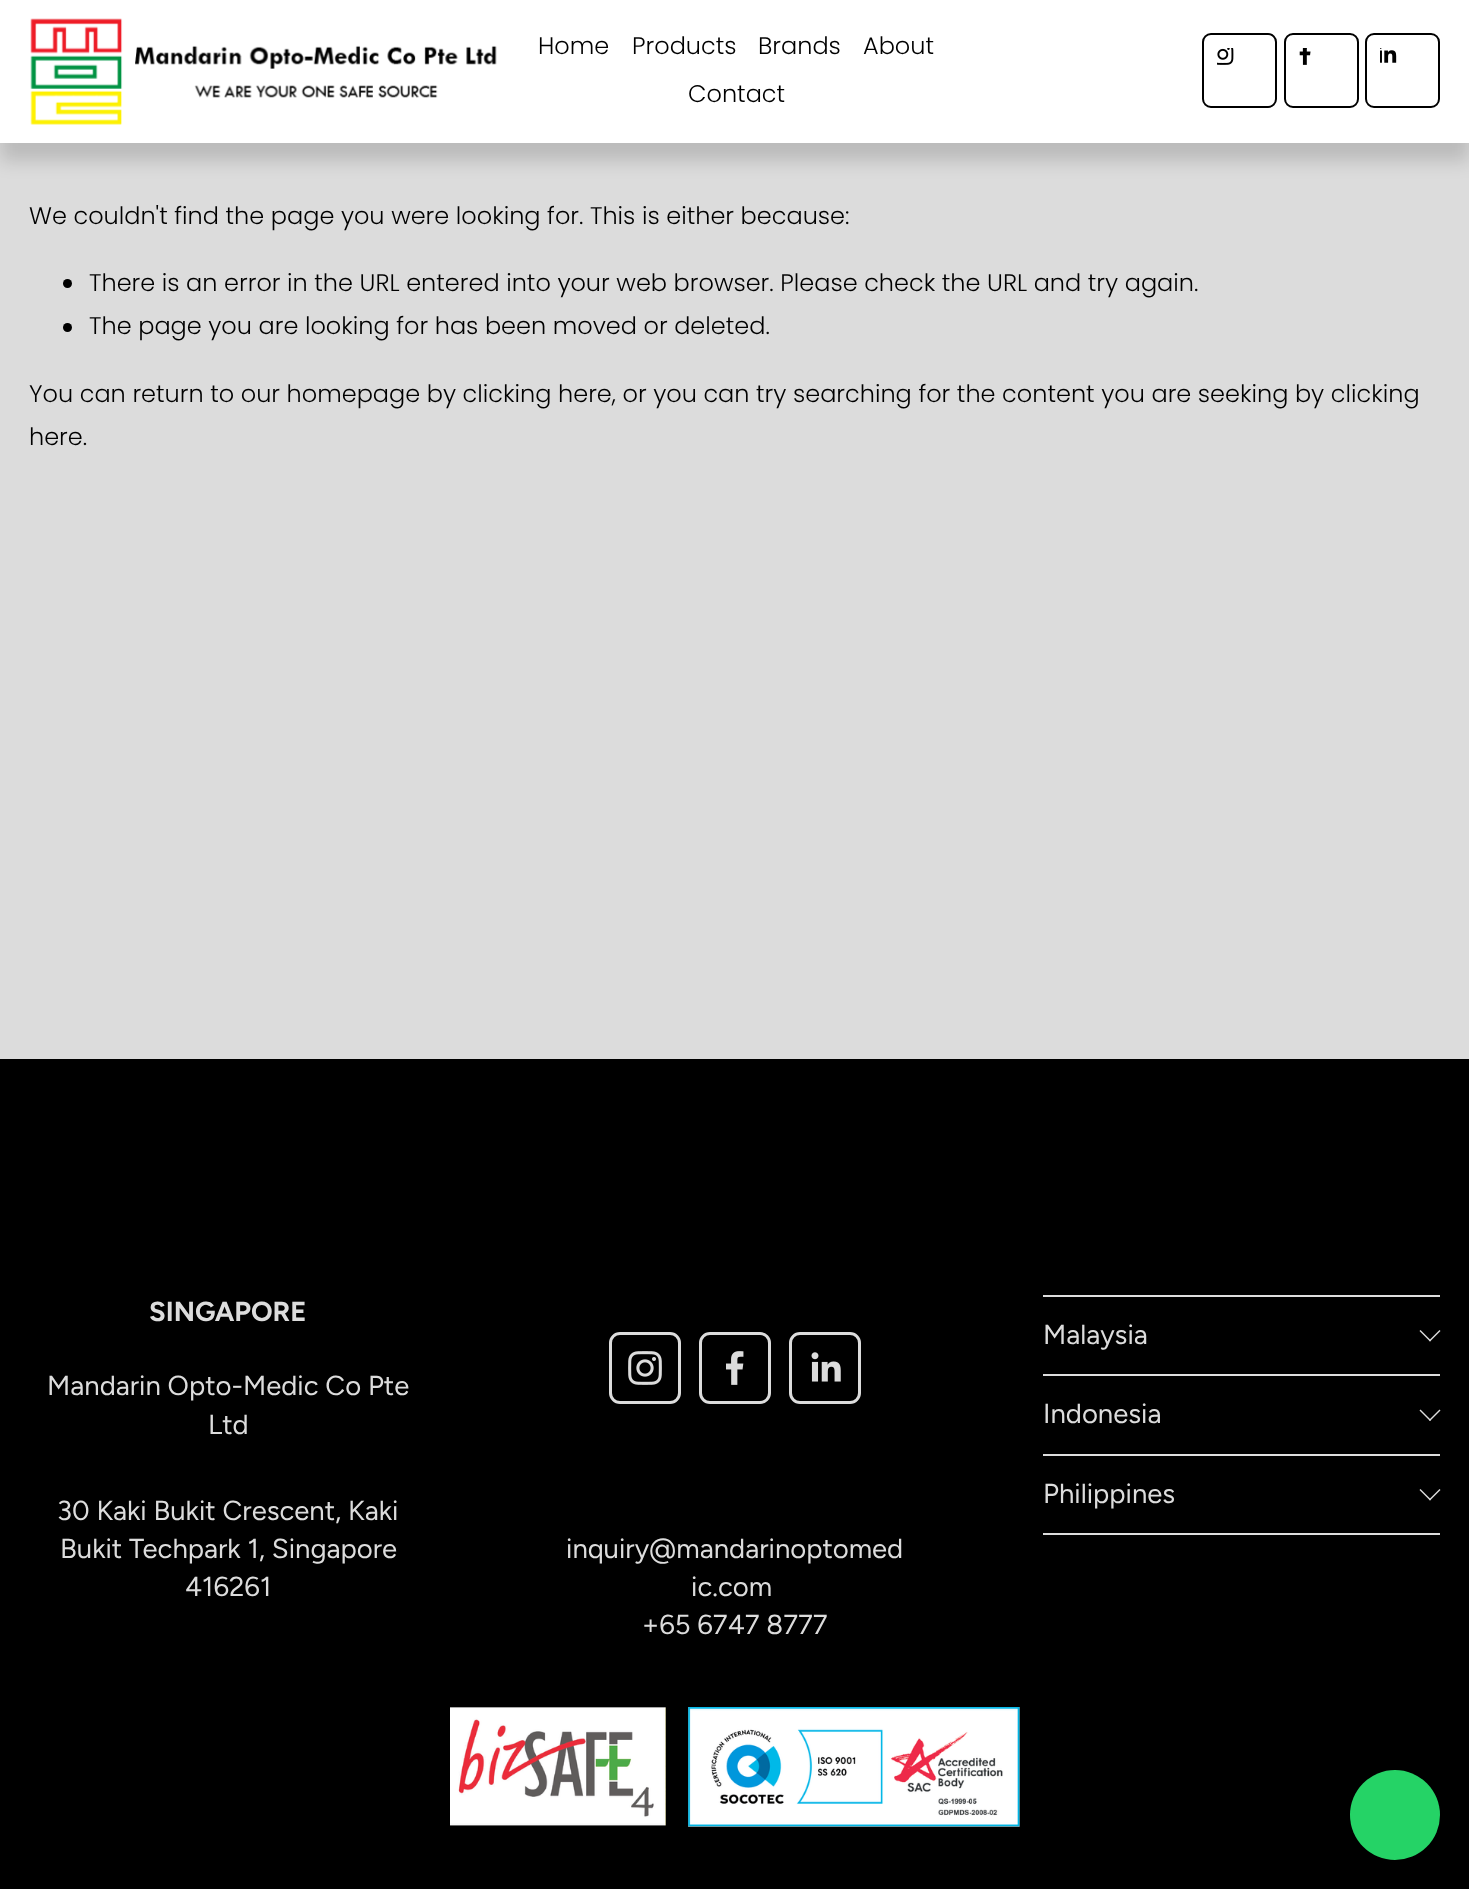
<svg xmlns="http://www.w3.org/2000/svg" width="1469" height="1889">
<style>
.a{font:300 24px Poppins;fill:#000}
.b{font:bold 27.5px Figtree;fill:#dcdcdc}
.c{font:27.5px Figtree;fill:#dcdcdc}
</style>
<defs>
<clipPath id="clip1"><path d="M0 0h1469v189h-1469zm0 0h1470v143h-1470z" clip-rule="evenodd"/></clipPath>
</defs>
<rect width="100%" height="100%" fill="#dcdcdc"/>
<path fill="#fff" d="M0 0h1469v143H0z"/>
<g clip-path="url(#clip1)">
<path fill="#00000026" filter="blur(9px)" d="M0 18h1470v143H0z"/>
</g>
<image href="1.png" x="30" y="18" width="467" height="107"/>
<rect fill="none" stroke="#000" stroke-width="2" x="1203" y="34" width="73" height="73" rx="8"/>
<image href="2.png" x="1217" y="48" width="17" height="17"/>
<rect fill="none" stroke="#000" stroke-width="2" x="1285" y="34" width="73" height="73" rx="8"/>
<image href="3.png" x="1299" y="48" width="12" height="17"/>
<rect fill="none" stroke="#000" stroke-width="2" x="1366" y="34" width="73" height="73" rx="8"/>
<image href="4.png" x="1380" y="48" width="17" height="15"/>
<circle fill="#000" cx="67.5" cy="283.5" r="4.5"/>
<circle fill="#000" cx="67.5" cy="327.5" r="4.5"/>
<path fill="#000" d="M0 1059h1469v830H0z"/>
<rect fill="none" stroke="#dcdcdc" stroke-width="3" x="610.5" y="1333.5" width="69" height="69" rx="9.5"/>
<image href="5.png" x="628" y="1351" width="34" height="34"/>
<rect fill="none" stroke="#dcdcdc" stroke-width="3" x="700.5" y="1333.5" width="69" height="69" rx="9.5"/>
<image href="6.png" x="726" y="1351" width="18" height="34"/>
<rect fill="none" stroke="#dcdcdc" stroke-width="3" x="790.5" y="1333.5" width="69" height="69" rx="9.5"/>
<image href="7.png" x="811" y="1352" width="30" height="30"/>
<path fill="#dcdcdc" d="M1043 1295h397v2H1043z"/>
<path fill="#dcdcdc" d="M1439.5 1330l1 1l-10.5 10.5l-1-1z"/>
<path fill="#dcdcdc" d="M1420.5 1330l10.5 10.5l-1 1l-10.5-10.5z"/>
<path fill="#dcdcdc" d="M1043 1374h397v2H1043z"/>
<path fill="#dcdcdc" d="M1439.5 1409.5l1 1l-10.5 10.5l-1-1z"/>
<path fill="#dcdcdc" d="M1420.5 1409.5l10.5 10.5l-1 1l-10.5-10.5z"/>
<path fill="#dcdcdc" d="M1043 1454h397v2H1043z"/>
<path fill="#dcdcdc" d="M1439.5 1489l1 1l-10.5 10.5l-1-1z"/>
<path fill="#dcdcdc" d="M1420.5 1489l10.5 10.5l-1 1l-10.5-10.5z"/>
<path fill="#dcdcdc" d="M1043 1533h397v2H1043z"/>
<image href="8.png" x="450" y="1707" width="570" height="120"/>
<circle fill="#25d366" cx="1395" cy="1815" r="45"/>
<text class="a" x="538" y="54">Home</text>
<text class="a" x="632" y="54">Products</text>
<text class="a" x="758" y="54">Brands</text>
<text class="a" x="863" y="54">About</text>
<text class="a" x="688" y="102">Contact</text>
<text class="a" x="29" y="224">We couldn't find the page you were looking for. This is either because:</text>
<text class="a" x="89" y="291">There is an error in the URL entered into your web browser. Please check the URL and try again.</text>
<text class="a" x="89" y="334">The page you are looking for has been moved or deleted.</text>
<text class="a" x="29" y="402">You can return to our homepage by clicking here, or you can try searching for the content you are seeking by clicking</text>
<text class="a" x="29" y="445">here.</text>
<text class="b" x="149" y="1321">SINGAPORE</text>
<text class="c" x="47" y="1395">Mandarin Opto-Medic Co Pte</text>
<text class="c" x="208" y="1434">Ltd</text>
<text class="c" x="57" y="1520">30 Kaki Bukit Crescent, Kaki</text>
<text class="c" x="60" y="1558">Bukit Techpark 1, Singapore</text>
<text class="c" x="185" y="1596">416261</text>
<text class="c" x="1043" y="1344">Malaysia</text>
<text class="c" x="1043" y="1423">Indonesia</text>
<text class="c" x="1043" y="1503">Philippines</text>
<text class="c" x="566" y="1558">inquiry@mandarinoptomed</text>
<text class="c" x="691" y="1596">ic.com</text>
<text class="c" x="642" y="1634">+65 6747 8777</text>
</svg>
